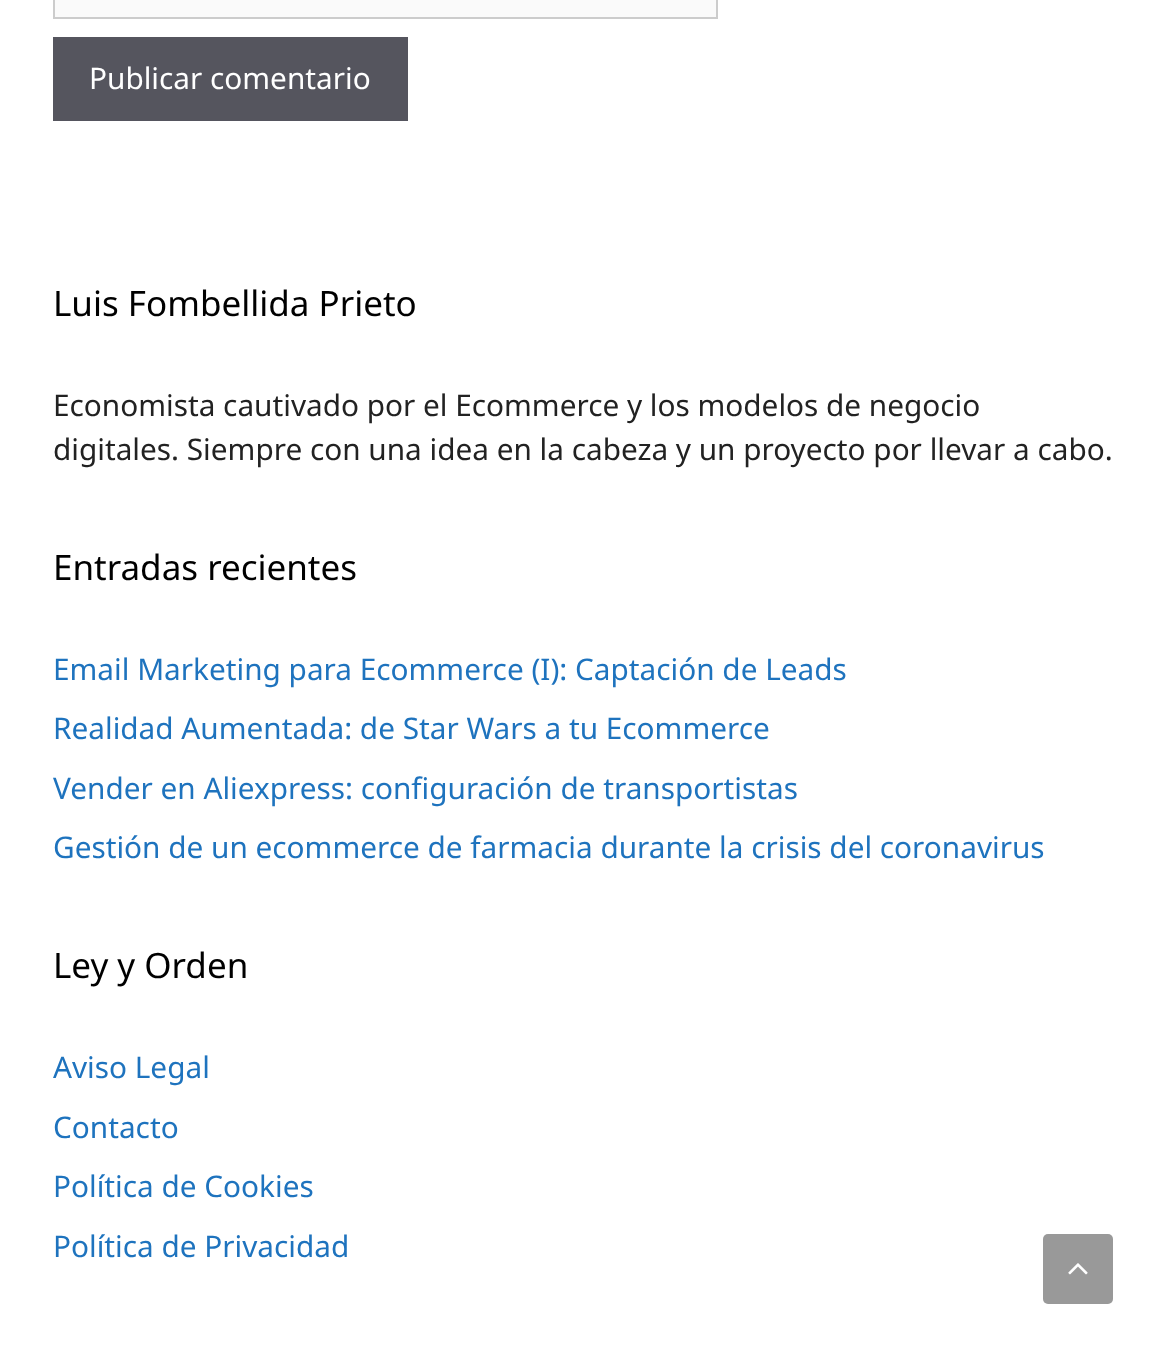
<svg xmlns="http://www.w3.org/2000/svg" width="1164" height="1356">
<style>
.a{font:29.75px Noto Sans;fill:#fff}
.b{font:35px Noto Sans;fill:#000}
.c{font:29.75px Noto Sans;fill:#222}
.d{font:29.75px Noto Sans;fill:#1e73be}
</style>
<rect width="100%" height="100%" fill="#fff"/>
<path fill="#fafafa" stroke="#ccc" stroke-width="2" d="M54 -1h663v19H54z"/>
<path fill="#55555e" d="M53 37h355v84H53z"/>
<rect fill="#999" x="1043" y="1234" width="70" height="70" rx="5"/>
<image href="1.png" x="1068" y="1263" width="20" height="12"/>
<text class="a" x="89" y="89">Publicar comentario</text>
<text class="b" x="53" y="316">Luis Fombellida Prieto</text>
<text class="c" x="53" y="416">Economista cautivado por el Ecommerce y los modelos de negocio</text>
<text class="c" x="53" y="460">digitales. Siempre con una idea en la cabeza y un proyecto por llevar a cabo.</text>
<text class="b" x="53" y="580">Entradas recientes</text>
<text class="d" x="53" y="680">Email Marketing para Ecommerce (I): Captación de Leads</text>
<text class="d" x="53" y="739">Realidad Aumentada: de Star Wars a tu Ecommerce</text>
<text class="d" x="53" y="799">Vender en Aliexpress: configuración de transportistas</text>
<text class="d" x="53" y="858">Gestión de un ecommerce de farmacia durante la crisis del coronavirus</text>
<text class="b" x="53" y="978">Ley y Orden</text>
<text class="d" x="53" y="1078">Aviso Legal</text>
<text class="d" x="53" y="1138">Contacto</text>
<text class="d" x="53" y="1197">Política de Cookies</text>
<text class="d" x="53" y="1257">Política de Privacidad</text>
</svg>
